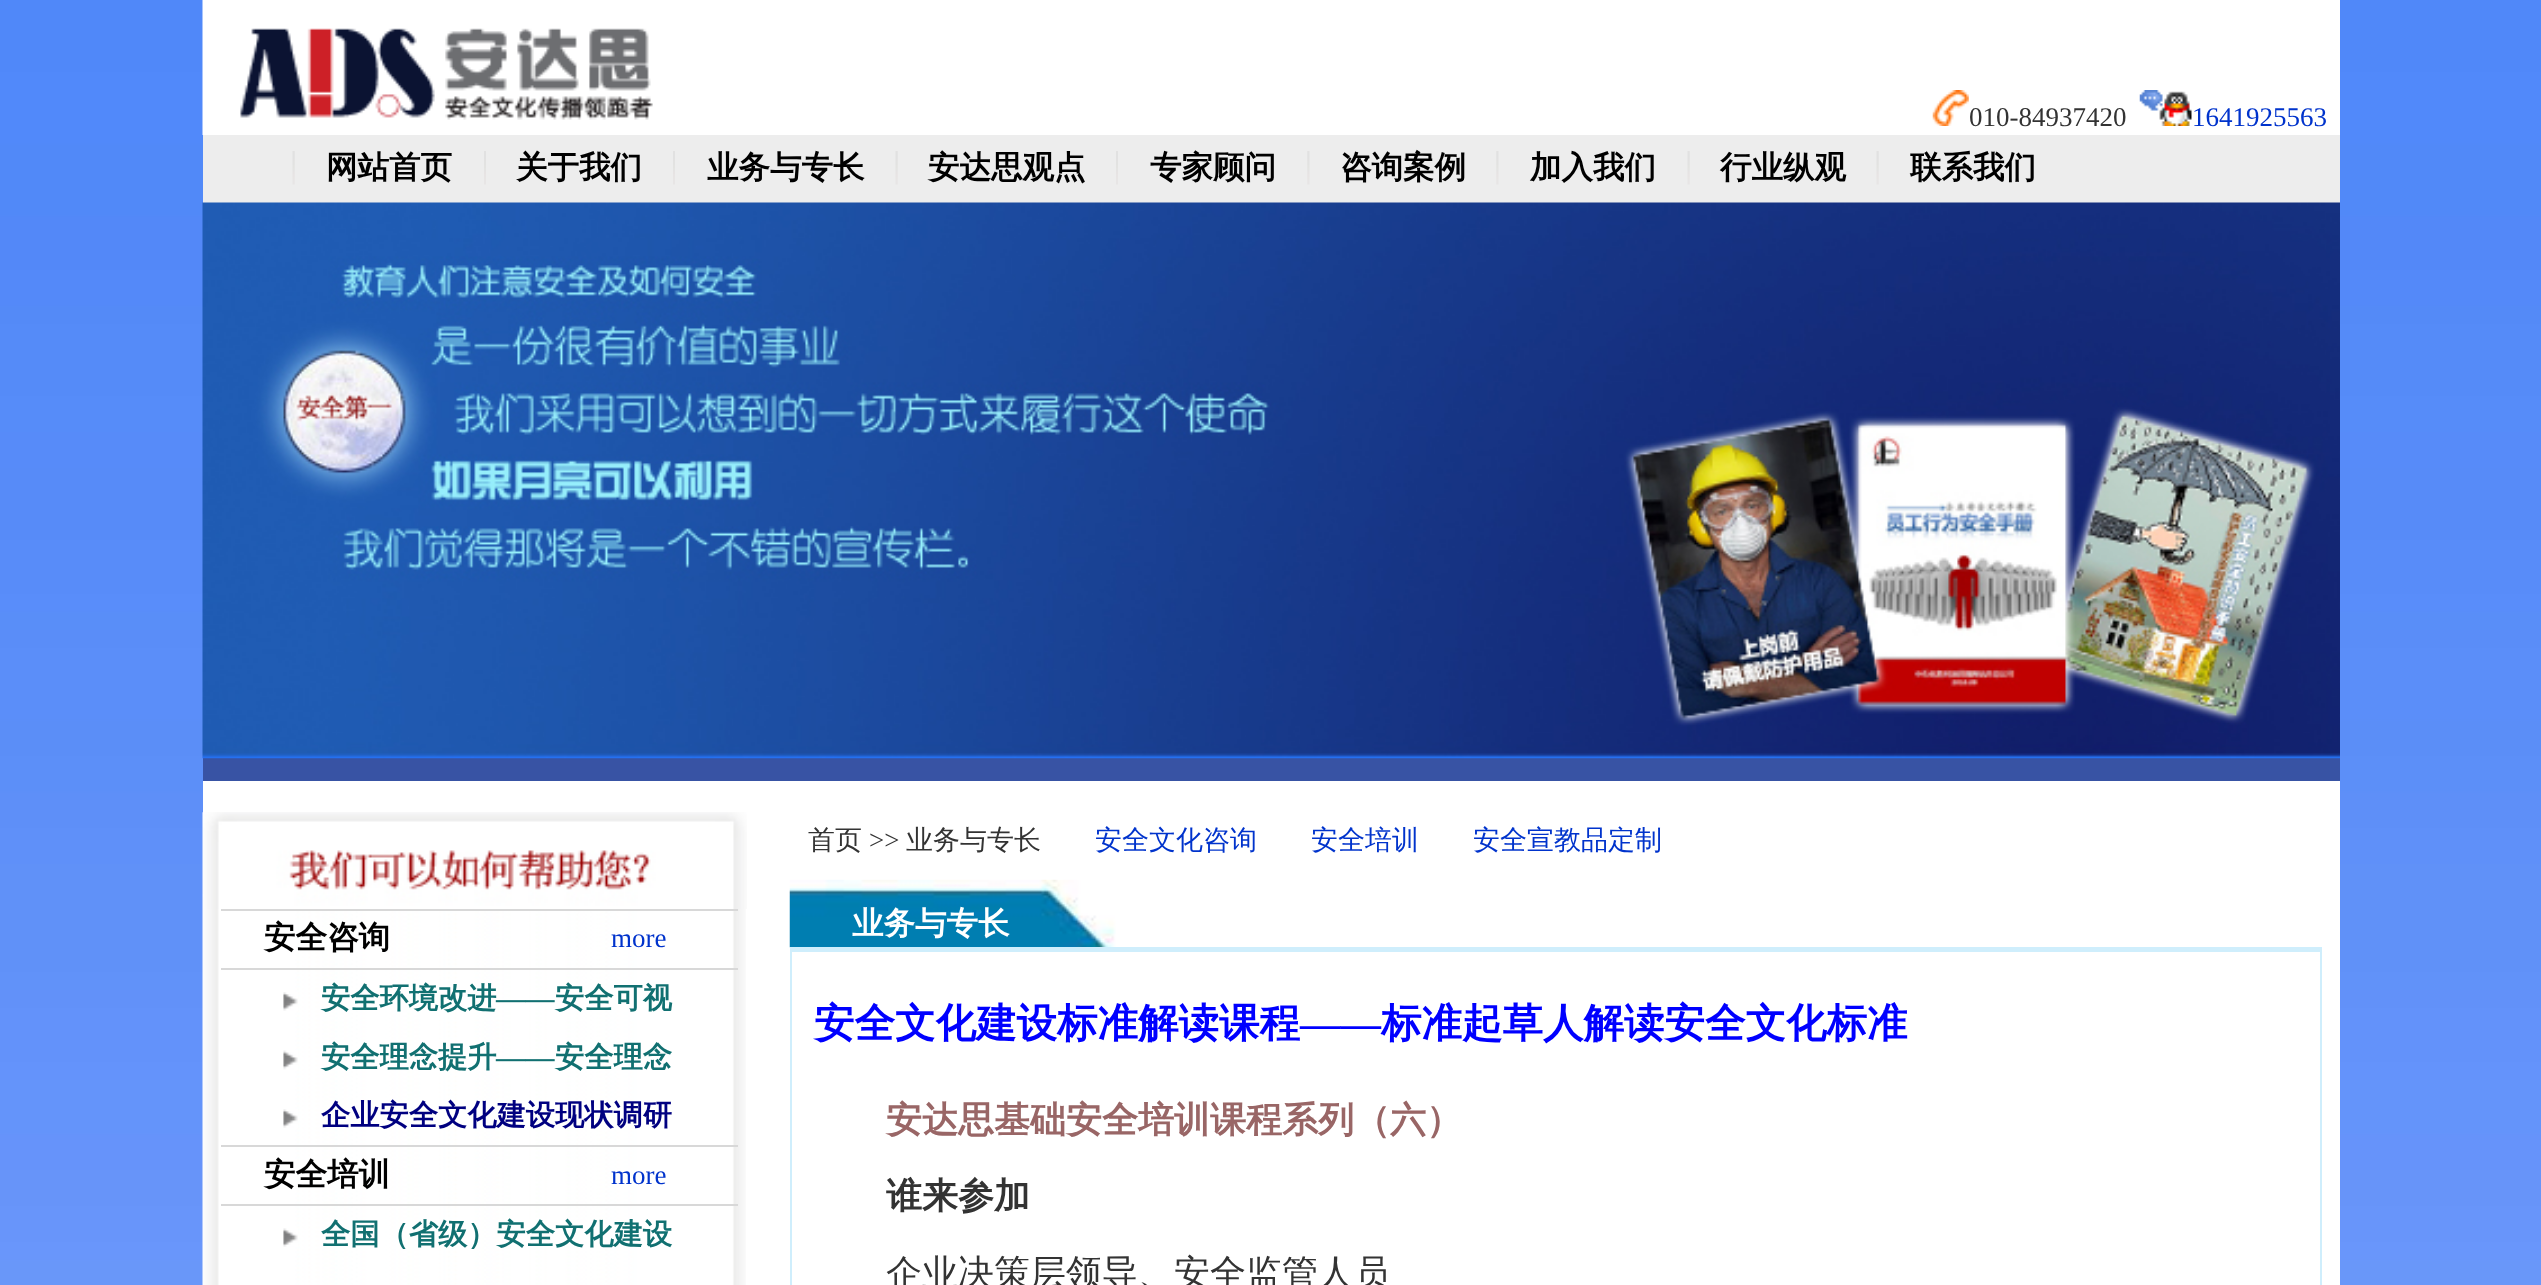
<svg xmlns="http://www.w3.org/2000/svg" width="2541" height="1285">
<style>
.a{font:27px Liberation Serif;fill:#333}
.b{font:27px Liberation Serif;fill:#03c}
.c{font:bold 31.5px WenQuanYi Zen Hei;fill:#000}
.d{font:bold 29.25px WenQuanYi Zen Hei;fill:#117071}
.e{font:bold 29.25px Liberation Serif;fill:#117071}
.f{font:bold 29.25px WenQuanYi Zen Hei;fill:#000080}
.g{font:500 27px WenQuanYi Zen Hei;fill:#333}
.h{font:500 27px WenQuanYi Zen Hei;fill:#03c}
.i{font:bold 31.5px WenQuanYi Zen Hei;fill:#fff}
.j{font:bold 40.5px WenQuanYi Zen Hei;fill:#00f}
.k{font:bold 40.5px Liberation Serif;fill:#00f}
.l{font:bold 36px WenQuanYi Zen Hei;fill:#966}
.m{font:bold 36px WenQuanYi Zen Hei;fill:#333}
.n{font:500 36px WenQuanYi Zen Hei;fill:#333}
</style>
<rect width="100%" height="100%" fill="#fff"/>
<image href="1.png" x="0" y="0" width="2541" height="1285"/>
<path fill="#fff" d="M652 0h1688v135H652z"/>
<image href="2.png" x="202" y="0" width="451" height="135"/>
<image href="3.png" x="1932" y="90" width="37" height="36"/>
<image href="4.png" x="2139" y="90" width="53" height="36"/>
<path fill="#ededed" d="M203 135h2137v68H203z"/>
<image href="5.png" x="292" y="151" width="3" height="34"/>
<image href="6.png" x="484" y="151" width="2" height="34"/>
<image href="6.png" x="673" y="151" width="2" height="34"/>
<image href="5.png" x="895" y="151" width="3" height="34"/>
<image href="6.png" x="1116" y="151" width="2" height="34"/>
<image href="7.png" x="1307" y="151" width="3" height="34"/>
<image href="7.png" x="1496" y="151" width="3" height="34"/>
<image href="5.png" x="1687" y="151" width="3" height="34"/>
<image href="5.png" x="1876" y="151" width="3" height="34"/>
<path fill="#3853a4" d="M203 758h2137v23H203z"/>
<image href="8.png" x="202" y="202" width="2138" height="557"/>
<path fill="#fff" d="M203 781h2137v504H203z"/>
<image href="9.png" x="202" y="812" width="545" height="97"/>
<image href="10.png" x="202" y="909" width="544" height="376"/>
<path fill="#d8d8d8" d="M221 909h517v2H221z"/>
<path fill="#d8d8d8" d="M221 968h517v2H221z"/>
<image href="11.png" x="283" y="992" width="15" height="19"/>
<image href="12.png" x="283" y="1050" width="15" height="20"/>
<image href="11.png" x="283" y="1109" width="15" height="19"/>
<path fill="#d8d8d8" d="M221 1145h517v2H221z"/>
<path fill="#d8d8d8" d="M221 1204h517v2H221z"/>
<image href="13.png" x="283" y="1228" width="15" height="19"/>
<image href="14.png" x="789" y="879" width="327" height="69"/>
<path fill="#cfeefc" d="M790 947h1532v338H790z"/>
<path fill="#fff" d="M792 952h1528v333H792z"/>
<text class="a" x="1969" y="126">010-84937420</text>
<text class="b" x="2192" y="126">1641925563</text>
<text class="c" x="326" y="178">网站首页</text>
<text class="c" x="516" y="178">关于我们</text>
<text class="c" x="707" y="178">业务与专长</text>
<text class="c" x="928" y="178">安达思观点</text>
<text class="c" x="1150" y="178">专家顾问</text>
<text class="c" x="1340" y="178">咨询案例</text>
<text class="c" x="1530" y="178">加入我们</text>
<text class="c" x="1720" y="178">行业纵观</text>
<text class="c" x="1910" y="178">联系我们</text>
<text class="c" x="264" y="948">安全咨询</text>
<text class="b" x="611" y="947">more</text>
<text class="d" x="321" y="1008">安全环境改进</text>
<text class="e" x="496" y="1008">——</text>
<text class="d" x="555" y="1008">安全可视</text>
<text class="d" x="321" y="1067">安全理念提升</text>
<text class="e" x="496" y="1067">——</text>
<text class="d" x="555" y="1067">安全理念</text>
<text class="f" x="321" y="1125">企业安全文化建设现状调研</text>
<text class="c" x="264" y="1185">安全培训</text>
<text class="b" x="611" y="1184">more</text>
<text class="d" x="321" y="1244">全国（省级）安全文化建设</text>
<text class="g" x="808" y="849">首页</text>
<text class="a" x="869" y="849">&gt;&gt;</text>
<text class="g" x="906" y="849">业务与专长</text>
<text class="h" x="1095" y="849">安全文化咨询</text>
<text class="h" x="1311" y="849">安全培训</text>
<text class="h" x="1473" y="849">安全宣教品定制</text>
<text class="i" x="852" y="934">业务与专长</text>
<text class="j" x="814" y="1037">安全文化建设标准解读课程</text>
<text class="k" x="1300" y="1037">——</text>
<text class="j" x="1381" y="1037">标准起草人解读安全文化标准</text>
<text class="l" x="886" y="1132">安达思基础安全培训课程系列（六）</text>
<text class="m" x="886" y="1208">谁来参加</text>
<text class="n" x="886" y="1285">企业决策层领导、安全监管人员</text>
</svg>
